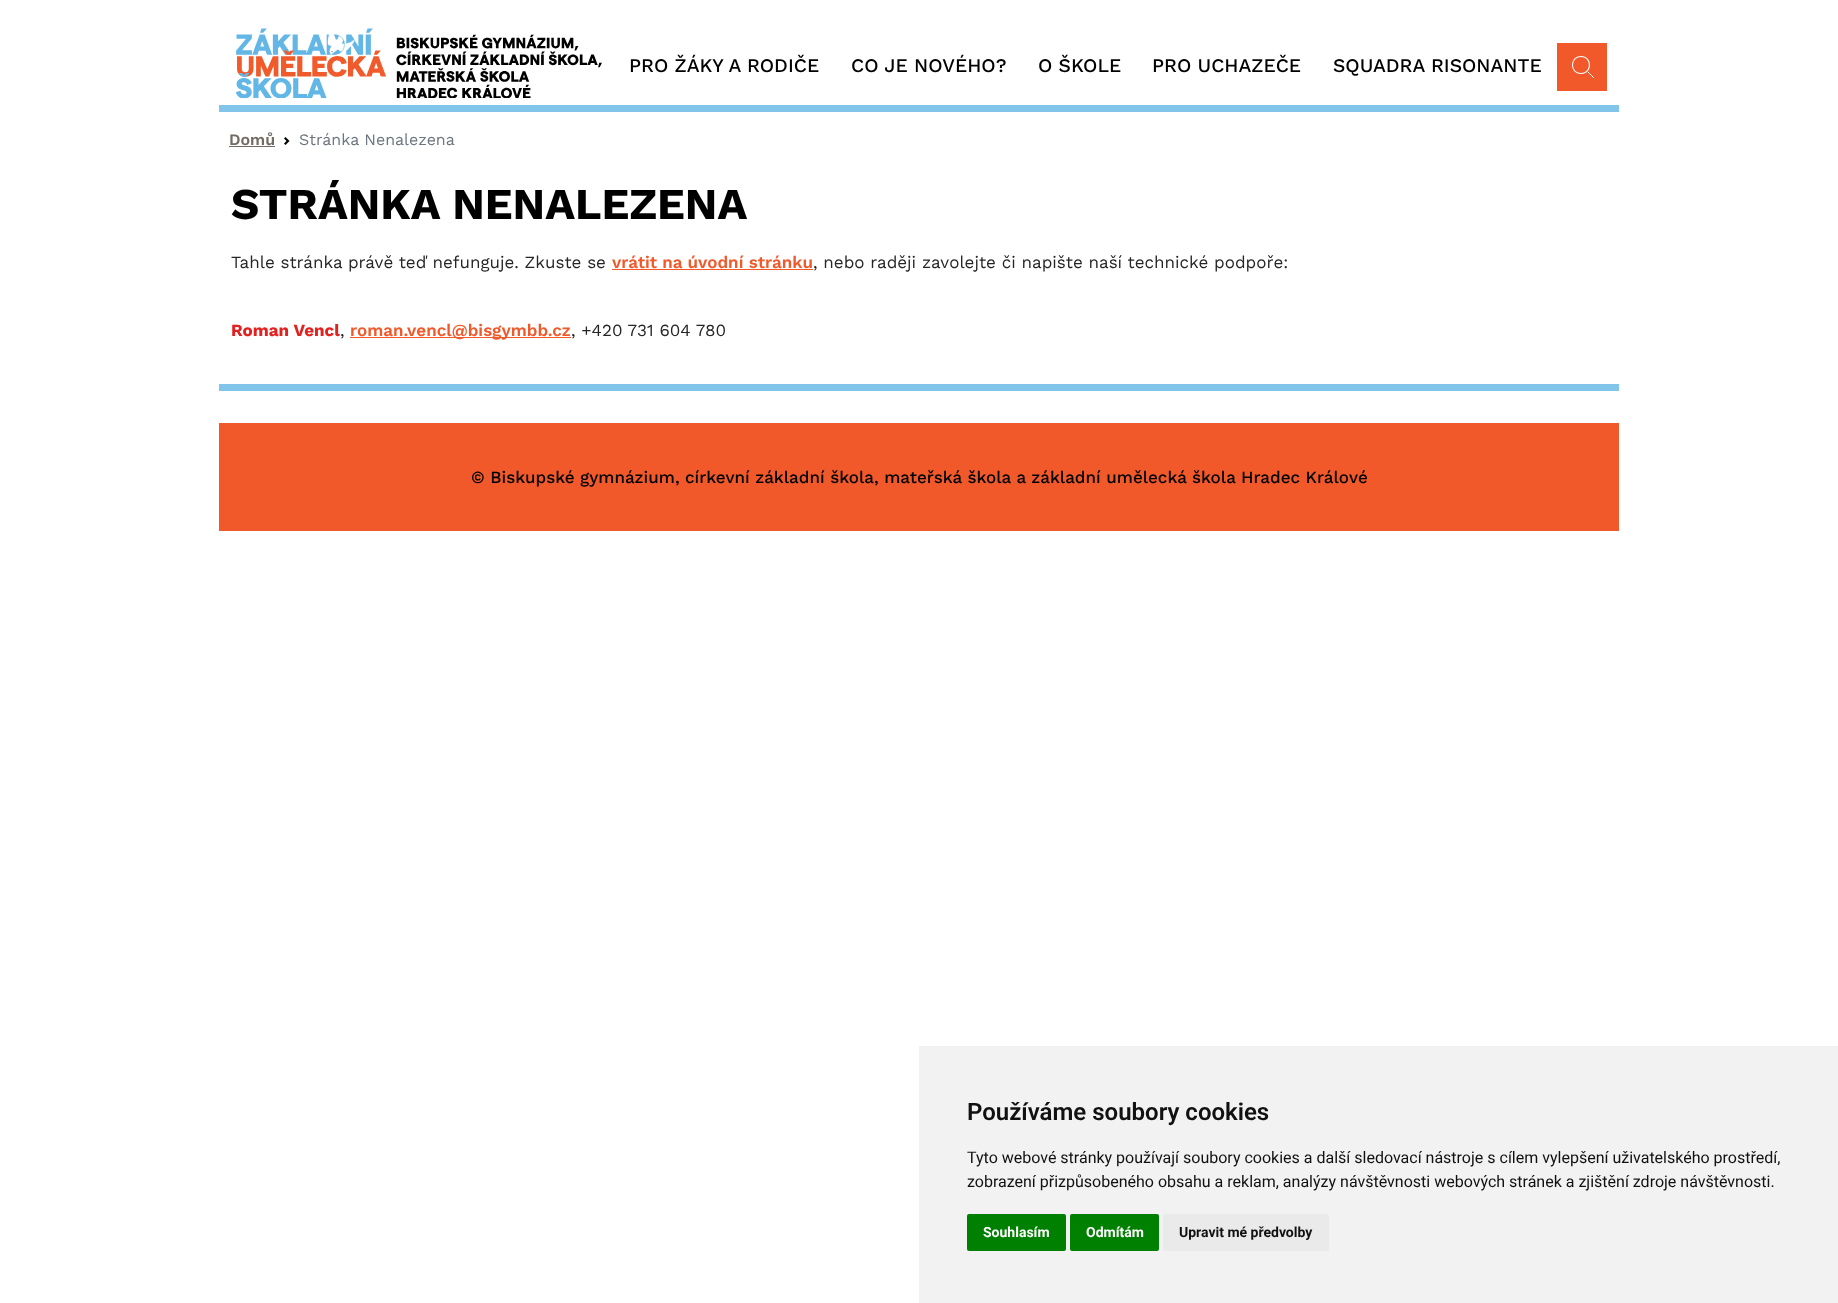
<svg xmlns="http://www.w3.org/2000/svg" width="1838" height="1303">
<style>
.a{font:500 19.25px Work Sans;fill:#000}
.b{font:600 16px Work Sans;fill:#726b63}
.c{font:16px Work Sans;fill:#6c757d}
.d{font:bold 44px Work Sans;fill:#000}
.e{font:17px Work Sans;fill:#252525}
.f{font:600 17px Work Sans;fill:#f1592b}
.g{font:bold 17px Work Sans;fill:#e22121}
.h{font:500 17px Work Sans;fill:#000}
.i{font:600 24px Roboto;fill:#111}
.j{font:16px Roboto;fill:#111}
.k{font:bold 14px Roboto;fill:#fff}
.l{font:bold 14px Roboto;fill:#111}
</style>
<rect width="100%" height="100%" fill="#fff"/>
<path fill="#81c5eb" d="M219 105h1400v7H219z"/>
<image href="1.png" x="236" y="28" width="366" height="70"/>
<path fill="#f1592b" d="M1557 43h50v48H1557z"/>
<path fill="#fff" d="M1581 56c-12 0-12 18 0 18c12 0 12-18 0-18m0 1c10.5 0 10.5 16 0 16c-10.5 0-10.5-16 0-16"/>
<path fill="none" stroke="#fff" d="M1588 72l6 6"/>
<path fill="#81c5eb" d="M219 384h1400v7H219z"/>
<path fill="#726b63" d="M229 146h46v1H229z"/>
<image href="2.png" x="284" y="137" width="6" height="8"/>
<path fill="#f1592b" d="M612 269h201v1H612z"/>
<path fill="#f1592b" d="M350 337h221v1H350z"/>
<path fill="#f1592b" d="M219 423h1400v108H219z"/>
<path fill="#f2f2f2" d="M919 1046h919v257H919z"/>
<rect fill="#008000" x="967" y="1214" width="99" height="37" rx="2"/>
<rect fill="#008000" x="1070" y="1214" width="89" height="37" rx="2"/>
<rect fill="#eaeaea" x="1163" y="1214" width="166" height="37" rx="2"/>
<text class="a" x="629" y="72">PRO ŽÁKY A RODIČE</text>
<text class="a" x="851" y="72">CO JE NOVÉHO?</text>
<text class="a" x="1038" y="72">O ŠKOLE</text>
<text class="a" x="1152" y="72">PRO UCHAZEČE</text>
<text class="a" x="1333" y="72">SQUADRA RISONANTE</text>
<text class="b" x="229" y="145">Domů</text>
<text class="c" x="299" y="145">Stránka Nenalezena</text>
<text class="d" x="231" y="219">STRÁNKA NENALEZENA</text>
<text class="e" x="231" y="268">Tahle stránka právě teď nefunguje. Zkuste se</text>
<text class="f" x="612" y="268">vrátit na úvodní stránku</text>
<text class="e" x="813" y="268">, nebo raději zavolejte či napište naší technické podpoře:</text>
<text class="g" x="231" y="336">Roman Vencl</text>
<text class="e" x="340" y="336">,</text>
<text class="f" x="350" y="336">roman.vencl@bisgymbb.cz</text>
<text class="e" x="571" y="336">, +420 731 604 780</text>
<text class="h" x="471" y="483">© Biskupské gymnázium, církevní základní škola, mateřská škola a základní umělecká škola Hradec Králové</text>
<text class="i" x="967" y="1120">Používáme soubory cookies</text>
<text class="j" x="967" y="1163">Tyto webové stránky používají soubory cookies a další sledovací nástroje s cílem vylepšení uživatelského prostředí,</text>
<text class="j" x="967" y="1187">zobrazení přizpůsobeného obsahu a reklam, analýzy návštěvnosti webových stránek a zjištění zdroje návštěvnosti.</text>
<text class="k" x="983" y="1237">Souhlasím</text>
<text class="k" x="1086" y="1237">Odmítám</text>
<text class="l" x="1179" y="1237">Upravit mé předvolby</text>
</svg>
